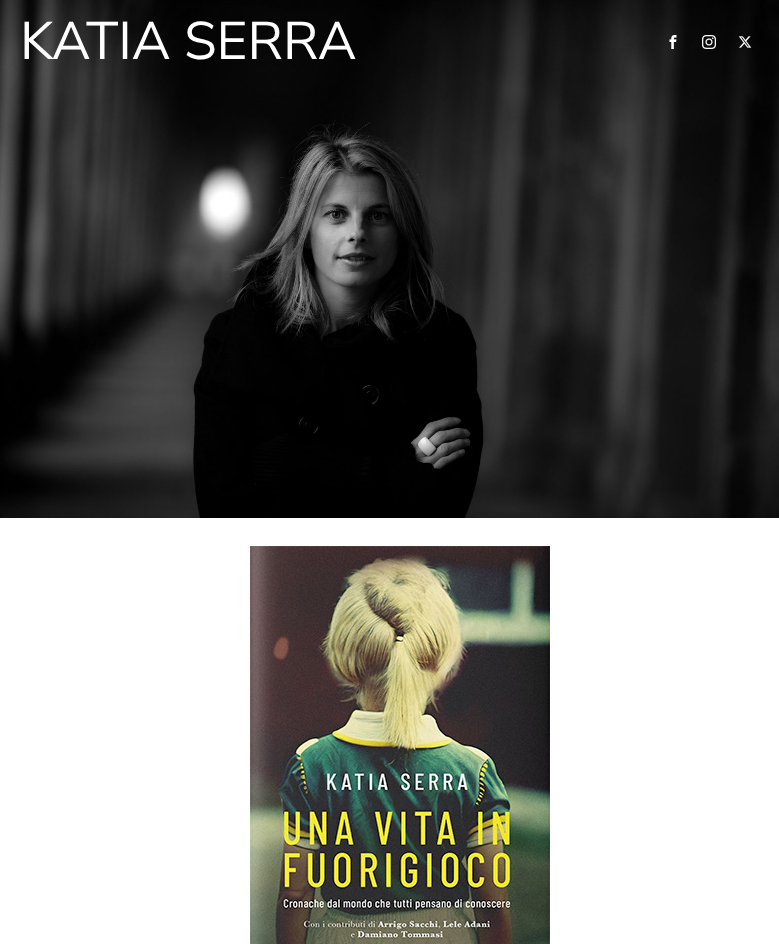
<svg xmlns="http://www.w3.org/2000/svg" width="779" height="944">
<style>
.a{font:53px Nunito Sans;fill:#fff}
</style>
<rect width="100%" height="100%" fill="#fff"/>
<image href="1.png" x="0" y="0" width="779" height="518"/>
<image href="2.png" x="250" y="546" width="300" height="398"/>
<image href="3.png" x="669" y="35" width="8" height="14"/>
<image href="4.png" x="702" y="35" width="14" height="14"/>
<image href="5.png" x="738" y="36" width="14" height="12"/>
<text class="a" x="20" y="59">KATIA SERRA</text>
</svg>
